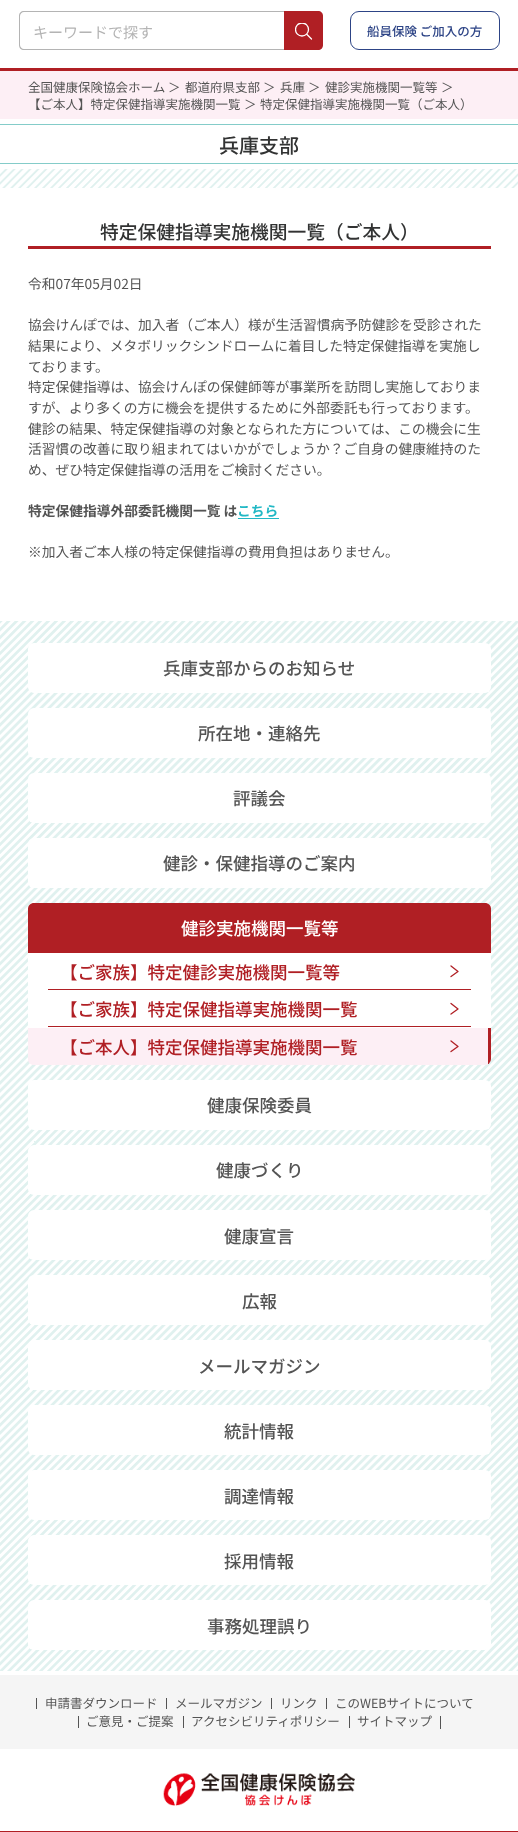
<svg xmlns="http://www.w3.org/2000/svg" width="518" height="1832">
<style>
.a{font:15px Noto Sans JP;fill:#b4b4b4}
.b{font:500 12.5px Noto Sans JP;fill:#2d4486}
.c{font:12.5px Noto Sans JP;fill:#545454}
.d{font:500 20px Noto Sans JP;fill:#323333}
.e{font:500 18.75px Noto Sans JP;fill:#323333}
.f{font:13.75px Noto Sans JP;fill:#545454}
.g{font:bold 13.75px Noto Sans JP;fill:#545454}
.h{font:bold 13.75px Noto Sans JP;fill:#21b8c5}
.i{font:500 17.5px Noto Sans JP;fill:#545454}
.j{font:500 17.5px Noto Sans JP;fill:#fff}
.k{font:500 17.5px Noto Sans JP;fill:#b01f24}
</style>
<defs>
<clipPath id="clip1"><path d="M295 23h18v17H295z"/></clipPath>
<clipPath id="clip2"><rect x="28" y="903" width="463" height="162" rx="6"/></clipPath>
</defs>
<rect width="100%" height="100%" fill="#fff"/>
<path fill="#b01f24" d="M0 68h518v3H0z"/>
<path fill="#b4b4b4" fill-rule="evenodd" d="M24 11h260v39h-260c-3 0-5-2-5-5v-29c0-3 2-5 5-5zm0 1h260v37h-260c-2 0-4-2-4-4v-29c0-2 2-4 4-4z"/>
<path fill="#b01f24" d="M284 11h34c3 0 5 2 5 5v29c0 3-2 5-5 5h-34z"/>
<g clip-path="url(#clip1)">
<circle fill="none" stroke="#fff" stroke-width="1.3" cx="302" cy="29.5" r="6.5"/>
</g>
<path fill="none" stroke="#fff" stroke-width="1.3" stroke-linecap="round" stroke-linejoin="round" d="M311.5 39l-4.5-4.5"/>
<rect fill="none" stroke="#2d4486" x="350.5" y="11.5" width="149" height="38" rx="8.5"/>
<path fill="#fdeff5" d="M0 71h518v48H0z"/>
<image href="1.png" x="0" y="169" width="518" height="1502"/>
<path fill="#84ccc9" d="M0 124h518v1H0z"/>
<path fill="#84ccc9" d="M0 163h518v1H0z"/>
<path fill="#fff" d="M0 188h518v433H0z"/>
<path fill="#b01f24" d="M28 246h463v3H28z"/>
<path fill="#21b8c5" d="M238 518h41v1H238z"/>
<image href="2.png" x="0" y="621" width="518" height="1050"/>
<rect fill="#fff" x="28" y="643" width="463" height="50" rx="6"/>
<rect fill="#fff" x="28" y="708" width="463" height="50" rx="6"/>
<rect fill="#fff" x="28" y="773" width="463" height="50" rx="6"/>
<rect fill="#fff" x="28" y="838" width="463" height="50" rx="6"/>
<path fill="#b01f24" d="M34 903h451c3.5 0 6 2.5 6 6v44h-463v-44c0-3.5 2.5-6 6-6z"/>
<path fill="#fff" d="M28 953h463v75H28z"/>
<path fill="none" stroke="#b01f24" stroke-width="1.3" stroke-linecap="round" stroke-linejoin="round" d="M451 976.5l7-5l-7-5.5"/>
<path fill="#b01f24" d="M48 989h423v1H48z"/>
<path fill="none" stroke="#b01f24" stroke-width="1.3" stroke-linecap="round" stroke-linejoin="round" d="M451 1014l7-5l-7-5.5"/>
<path fill="#b01f24" d="M48 1026h423v1H48z"/>
<path fill="#fdeff5" d="M28 1028h463v31c0 3.5-2.5 6-6 6h-451c-3.5 0-6-2.5-6-6z"/>
<path fill="none" stroke="#b01f24" stroke-width="1.3" stroke-linecap="round" stroke-linejoin="round" d="M451 1051.5l7-5l-7-5.5"/>
<g clip-path="url(#clip2)">
<path fill="#b01f24" d="M488 1028h3v37H488z"/>
</g>
<rect fill="#fff" x="28" y="1080" width="463" height="50" rx="6"/>
<rect fill="#fff" x="28" y="1145" width="463" height="50" rx="6"/>
<rect fill="#fff" x="28" y="1210" width="463" height="50" rx="6"/>
<rect fill="#fff" x="28" y="1275" width="463" height="50" rx="6"/>
<rect fill="#fff" x="28" y="1340" width="463" height="50" rx="6"/>
<rect fill="#fff" x="28" y="1405" width="463" height="50" rx="6"/>
<rect fill="#fff" x="28" y="1470" width="463" height="50" rx="6"/>
<rect fill="#fff" x="28" y="1535" width="463" height="50" rx="6"/>
<rect fill="#fff" x="28" y="1600" width="463" height="50" rx="6"/>
<path fill="#f5f5f5" d="M0 1675h518v74H0z"/>
<path fill="#545454" d="M36 1698h1v11H36z"/>
<path fill="#545454" d="M166 1698h1v11H166z"/>
<path fill="#545454" d="M271 1698h1v11H271z"/>
<path fill="#545454" d="M326 1698h1v11H326z"/>
<path fill="#545454" d="M78 1716h1v12H78z"/>
<path fill="#545454" d="M183 1716h1v12H183z"/>
<path fill="#545454" d="M349 1716h1v12H349z"/>
<path fill="#545454" d="M440 1716h1v13H440z"/>
<image href="3.png" x="163" y="1773" width="192" height="33"/>
<path fill="#b01f24" d="M0 1831h518v1H0z"/>
<text class="a" x="33" y="38">キーワードで探す</text>
<text class="b" x="367" y="36">船員保険 ご加入の方</text>
<text class="c" x="28" y="92">全国健康保険協会ホーム</text>
<text class="c" x="168" y="92">＞</text>
<text class="c" x="185" y="92">都道府県支部</text>
<text class="c" x="263" y="92">＞</text>
<text class="c" x="280" y="92">兵庫</text>
<text class="c" x="308" y="92">＞</text>
<text class="c" x="325" y="92">健診実施機関一覧等</text>
<text class="c" x="441" y="92">＞</text>
<text class="c" x="28" y="109">【ご本人】特定保健指導実施機関一覧</text>
<text class="c" x="244" y="109">＞</text>
<text class="c" x="260" y="109">特定保健指導実施機関一覧（ご本人）</text>
<text class="d" x="219" y="153">兵庫支部</text>
<text class="e" x="100" y="239">特定保健指導実施機関一覧（ご本人）</text>
<text class="f" x="28" y="289">令和07年05月02日</text>
<text class="f" x="28" y="330">協会けんぽでは、加入者（ご本人）様が生活習慣病予防健診を受診された</text>
<text class="f" x="28" y="351">結果により、メタボリックシンドロームに着目した特定保健指導を実施し</text>
<text class="f" x="28" y="372">ております。</text>
<text class="f" x="28" y="392">特定保健指導は、協会けんぽの保健師等が事業所を訪問し実施しておりま</text>
<text class="f" x="28" y="413">すが、より多くの方に機会を提供するために外部委託も行っております。</text>
<text class="f" x="28" y="434">健診の結果、特定保健指導の対象となられた方については、この機会に生</text>
<text class="f" x="28" y="454">活習慣の改善に取り組まれてはいかがでしょうか？ご自身の健康維持のた</text>
<text class="f" x="28" y="475">め、ぜひ特定保健指導の活用をご検討ください。</text>
<text class="g" x="28" y="516">特定保健指導外部委託機関一覧 は</text>
<text class="h" x="237" y="516">こちら</text>
<text class="f" x="28" y="557">※加入者ご本人様の特定保健指導の費用負担はありません。</text>
<text class="i" x="163" y="675">兵庫支部からのお知らせ</text>
<text class="i" x="198" y="740">所在地・連絡先</text>
<text class="i" x="233" y="805">評議会</text>
<text class="i" x="163" y="870">健診・保健指導のご案内</text>
<text class="j" x="181" y="935">健診実施機関一覧等</text>
<text class="k" x="60" y="979">【ご家族】特定健診実施機関一覧等</text>
<text class="k" x="60" y="1016">【ご家族】特定保健指導実施機関一覧</text>
<text class="k" x="60" y="1054">【ご本人】特定保健指導実施機関一覧</text>
<text class="i" x="207" y="1112">健康保険委員</text>
<text class="i" x="216" y="1177">健康づくり</text>
<text class="i" x="224" y="1243">健康宣言</text>
<text class="i" x="242" y="1308">広報</text>
<text class="i" x="198" y="1373">メールマガジン</text>
<text class="i" x="224" y="1438">統計情報</text>
<text class="i" x="224" y="1503">調達情報</text>
<text class="i" x="224" y="1568">採用情報</text>
<text class="i" x="207" y="1633">事務処理誤り</text>
<text class="c" x="45" y="1708">申請書ダウンロード</text>
<text class="c" x="175" y="1708">メールマガジン</text>
<text class="c" x="280" y="1708">リンク</text>
<text class="c" x="335" y="1708">このWEBサイトについて</text>
<text class="c" x="86" y="1726">ご意見・ご提案</text>
<text class="c" x="191" y="1726">アクセシビリティポリシー</text>
<text class="c" x="357" y="1726">サイトマップ</text>
</svg>
